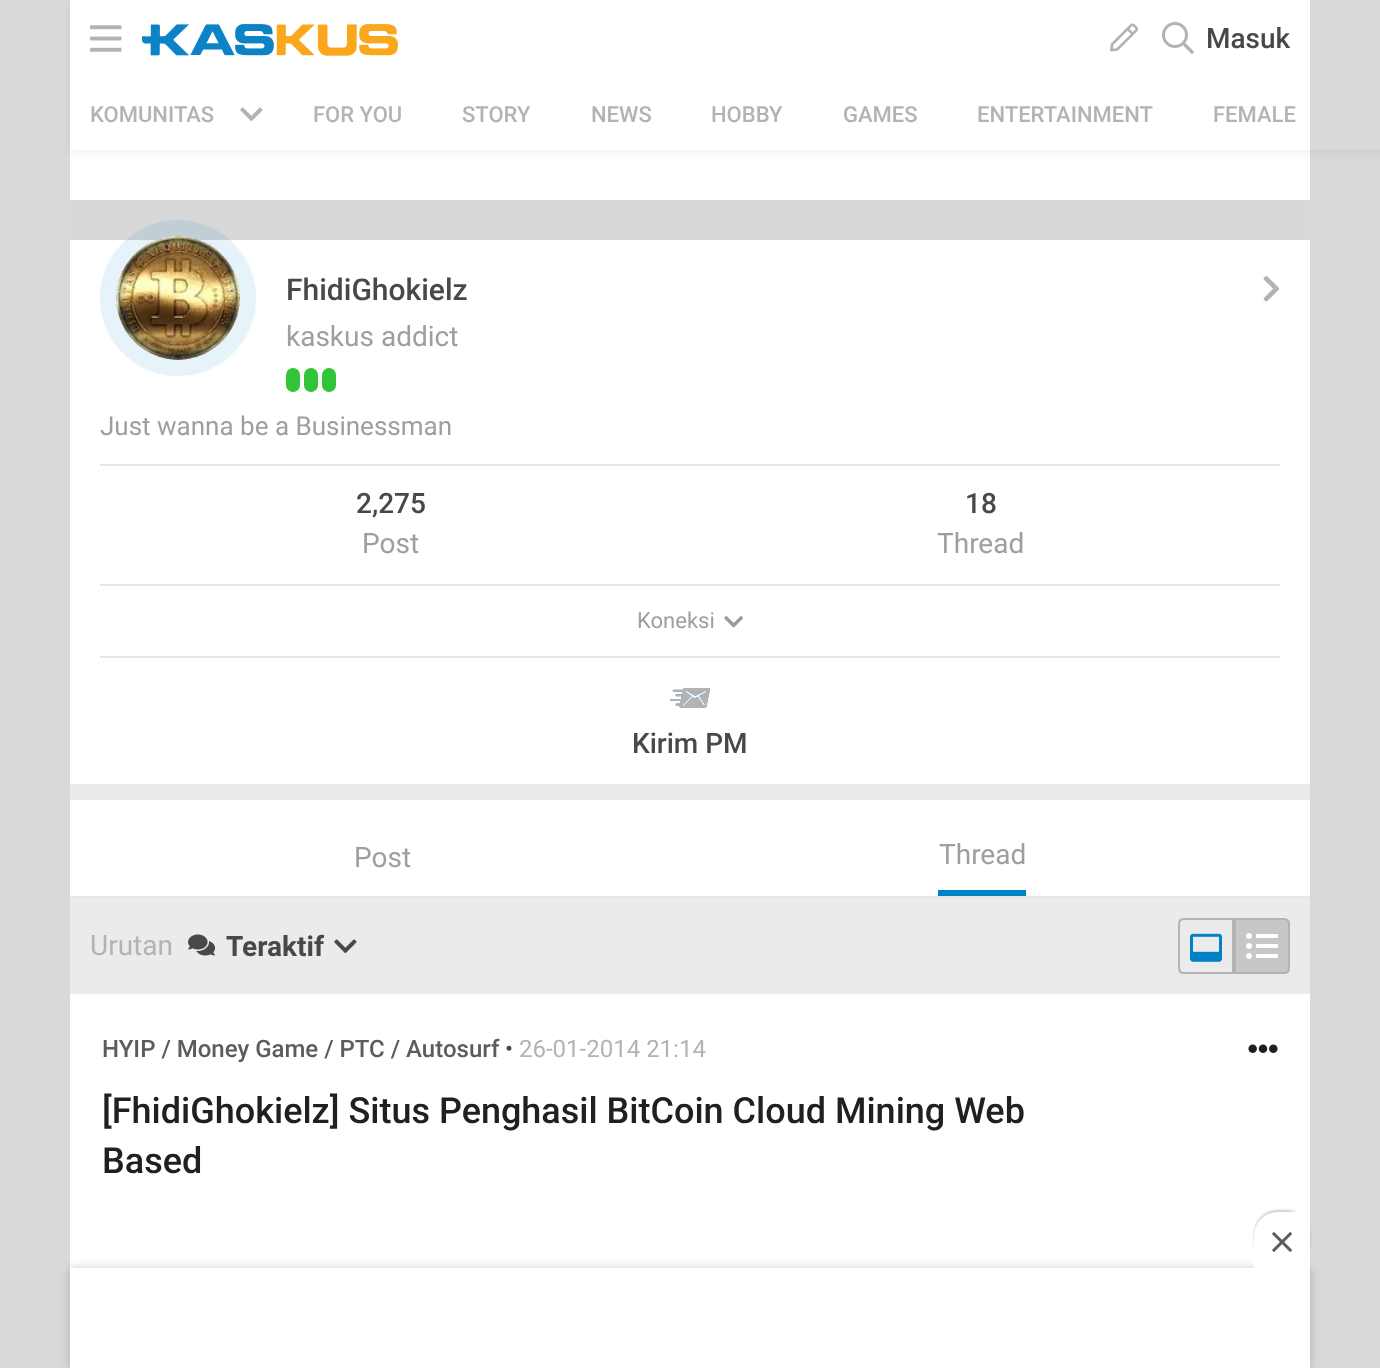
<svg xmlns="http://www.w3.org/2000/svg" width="1380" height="1368">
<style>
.a{font:500 28px Roboto;fill:#484848}
.b{font:500 22px Roboto;fill:#b3b3b3}
.c{font:500 30px Roboto;fill:#484848}
.d{font:28px Roboto;fill:#9e9e9e}
.e{font:26px Roboto;fill:#9e9e9e}
.f{font:22px Roboto;fill:#9e9e9e}
.g{font:28px Roboto;fill:#b3b3b3}
.h{font:bold 28px Roboto;fill:#484848}
.i{font:500 24px Roboto;fill:#5c5c5c}
.j{font:24px Roboto;fill:#484848}
.k{font:24px Roboto;fill:#b3b3b3}
.l{font:500 36px Roboto;fill:#202020}
</style>
<defs>
<clipPath id="clip1"><path d="M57 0h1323v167h-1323zm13 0h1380v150h-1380z" clip-rule="evenodd"/></clipPath>
</defs>
<rect width="100%" height="100%" fill="#d9d9d9"/>
<path fill="#fff" d="M70 0h1240v1268H70z"/>
<g clip-path="url(#clip1)">
<path fill="#0000000d" filter="blur(4px)" d="M70 4h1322v150H70z"/>
</g>
<image href="1.png" x="90" y="25" width="32" height="27"/>
<image href="2.png" x="142" y="24" width="256" height="32"/>
<image href="3.png" x="1110" y="23" width="28" height="29"/>
<image href="4.png" x="1162" y="22" width="32" height="32"/>
<image href="5.png" x="240" y="107" width="23" height="14"/>
<path fill="#d8d8d8" d="M70 200h1240v40H70z"/>
<image href="7.png" x="116" y="236" width="124" height="124"/>
<image href="6.png" x="100" y="220" width="156" height="156"/>
<rect fill="#30c436" x="286" y="368" width="14" height="24" rx="7"/>
<rect fill="#30c436" x="304" y="368" width="14" height="24" rx="7"/>
<rect fill="#30c436" x="322" y="368" width="14" height="24" rx="7"/>
<image href="8.png" x="1263" y="276" width="17" height="26"/>
<path fill="#ebebeb" d="M70 784h1240v16H70z"/>
<path fill="#e6e6e6" d="M100 464h1180v2H100z"/>
<path fill="#e6e6e6" d="M100 584h1180v2H100z"/>
<image href="9.png" x="724" y="616" width="19" height="12"/>
<path fill="#e6e6e6" d="M100 656h1180v2H100z"/>
<image href="10.png" x="670" y="688" width="40" height="20"/>
<path fill="#e6e6e6" d="M70 896h1240v2H70z"/>
<path fill="#0082c6" d="M938 890h88v6H938z"/>
<path fill="#ebebeb" d="M70 898h1240v96H70z"/>
<image href="11.png" x="188" y="934" width="27" height="22"/>
<image href="12.png" x="334" y="939" width="23" height="14"/>
<path fill="none" stroke="#b3b3b3" stroke-width="2" d="M1184 919h49v54h-49c-3 0-5-2-5-5v-44c0-3 2-5 5-5z"/>
<image href="13.png" x="1190" y="933" width="32" height="29"/>
<path fill="#c7c7c7" stroke="#b3b3b3" stroke-width="2" d="M1235 919h49c3 0 5 2 5 5v44c0 3-2 5-5 5h-49z"/>
<image href="14.png" x="1246" y="933" width="32" height="26"/>
<image href="15.png" x="1248" y="1044" width="30" height="9"/>
<path fill="#00000033" filter="blur(5px)" d="M70 1268h1240v100H70z"/>
<path fill="#fff" d="M70 1268h1240v100H70z"/>
<rect fill="#00000033" filter="blur(1px)" x="1254" y="1210" width="56" height="56" rx="24"/>
<path fill="#fff" d="M1278 1212h32v56h-56v-32c0-13.5 10.5-24 24-24z"/>
<image href="16.png" x="1272" y="1232" width="20" height="20"/>
<text class="a" x="1206" y="48">Masuk</text>
<text class="b" x="90" y="122">KOMUNITAS</text>
<text class="b" x="313" y="122">FOR YOU</text>
<text class="b" x="462" y="122">STORY</text>
<text class="b" x="591" y="122">NEWS</text>
<text class="b" x="711" y="122">HOBBY</text>
<text class="b" x="843" y="122">GAMES</text>
<text class="b" x="977" y="122">ENTERTAINMENT</text>
<text class="b" x="1213" y="122">FEMALE</text>
<text class="c" x="286" y="300">FhidiGhokielz</text>
<text class="d" x="286" y="346">kaskus addict</text>
<text class="e" x="100" y="435">Just wanna be a Businessman</text>
<text class="a" x="356" y="513">2,275</text>
<text class="d" x="362" y="553">Post</text>
<text class="a" x="965" y="513">18</text>
<text class="d" x="937" y="553">Thread</text>
<text class="f" x="637" y="628">Koneksi</text>
<text class="a" x="632" y="753">Kirim PM</text>
<text class="d" x="354" y="867">Post</text>
<text class="d" x="939" y="864">Thread</text>
<text class="g" x="90" y="955">Urutan</text>
<text class="h" x="226" y="956">Teraktif</text>
<text class="i" x="102" y="1057">HYIP / Money Game / PTC / Autosurf</text>
<text class="j" x="505" y="1057">•</text>
<text class="k" x="519" y="1057">26-01-2014 21:14</text>
<text class="l" x="102" y="1123">[FhidiGhokielz] Situs Penghasil BitCoin Cloud Mining Web</text>
<text class="l" x="102" y="1173">Based</text>
</svg>
